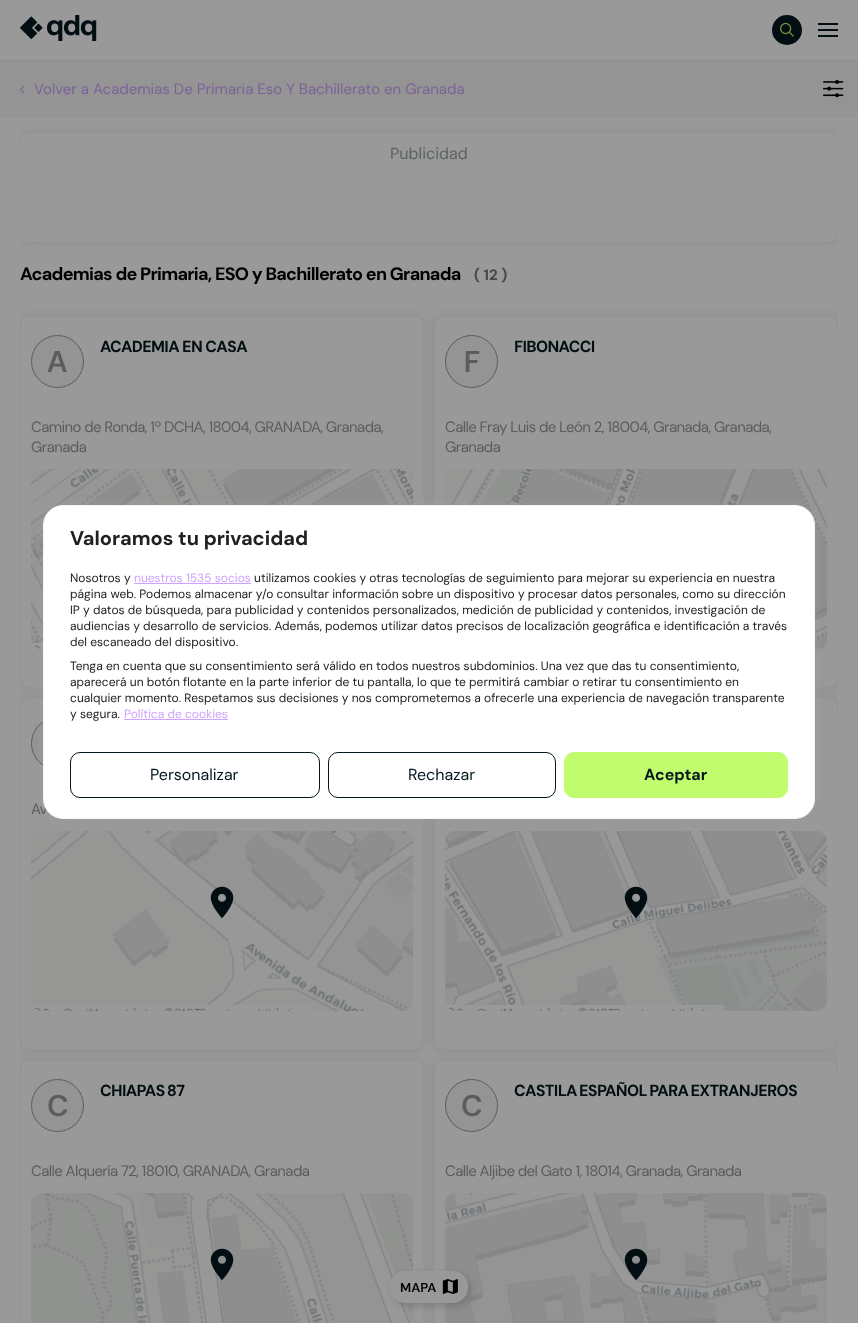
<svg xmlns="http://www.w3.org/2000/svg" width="858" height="1323">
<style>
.a{font:15px DM Sans;fill:#7c6299}
.b{font:600 13px 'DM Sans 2';fill:#000}
.c{font:16px 'DM Sans 2';fill:#5c6263}
.d{font:bold 18px DM Sans;letter-spacing:-0.72px;fill:#000}
.e{font:bold 15px 'DM Sans 2';fill:#474747}
.f{font:bold 16px 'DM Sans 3';letter-spacing:-0.65px;fill:#020e12}
.g{font:600 30px DM Sans;fill:#5c5c5c}
.h{font:15px DM Sans;letter-spacing:-0.6px;fill:#5c5c5c}
.i{font:600 30px 'DM Sans 2';fill:#5c5c5c}
.j{font:bold 20px 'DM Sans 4';fill:#212121}
.k{font:12px 'DM Sans 4';fill:#212121}
.l{font:12px 'DM Sans 4';fill:#cea3ff}
.m{font:16px 'DM Sans 3';fill:#03181e}
.n{font:bold 16px 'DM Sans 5';fill:#03181e}
</style>
<defs>
<clipPath id="clip1"><path d="M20 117h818v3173H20z"/></clipPath>
</defs>
<rect width="100%" height="100%" fill="#999"/>
<path fill="#8e8e8e" d="M0 60h858v1H0z"/>
<image href="1.png" x="20" y="15" width="77" height="26"/>
<circle fill="#020e12" cx="787" cy="30" r="15"/>
<image href="2.png" x="780" y="22" width="14" height="15"/>
<path fill="#020e12" d="M818 23h20v2H818z"/>
<path fill="#020e12" d="M818 29h20v2H818z"/>
<path fill="#020e12" d="M818 35h20v2H818z"/>
<path fill="#949494" d="M0 61h858v56H0z"/>
<image href="3.png" x="20" y="85" width="5" height="9"/>
<image href="4.png" x="823" y="80" width="21" height="18"/>
<g clip-path="url(#clip1)">
<rect fill="#00000017" filter="blur(4px)" x="20" y="316" width="404" height="372" rx="10"/>
</g>
<rect fill="#999" stroke="#959595" x="20.5" y="316.5" width="403" height="371" rx="9.5"/>
<g clip-path="url(#clip1)">
<rect fill="#00000017" filter="blur(4px)" x="434" y="316" width="404" height="372" rx="10"/>
</g>
<rect fill="#999" stroke="#959595" x="434.5" y="316.5" width="403" height="371" rx="9.5"/>
<g clip-path="url(#clip1)">
<rect fill="#00000017" filter="blur(4px)" x="20" y="698" width="404" height="352" rx="10"/>
</g>
<rect fill="#999" stroke="#959595" x="20.5" y="698.5" width="403" height="351" rx="9.5"/>
<g clip-path="url(#clip1)">
<rect fill="#00000017" filter="blur(4px)" x="434" y="698" width="404" height="352" rx="10"/>
</g>
<rect fill="#999" stroke="#959595" x="434.5" y="698.5" width="403" height="351" rx="9.5"/>
<g clip-path="url(#clip1)">
<rect fill="#00000017" filter="blur(4px)" x="20" y="1060" width="404" height="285" rx="10"/>
</g>
<rect fill="#999" stroke="#959595" x="20.5" y="1060.5" width="403" height="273" rx="9.5"/>
<image href="14.png" x="31" y="1193" width="382" height="10"/>
<image href="15.png" x="31" y="1193" width="382" height="130"/>
<g clip-path="url(#clip1)">
<rect fill="#00000017" filter="blur(4px)" x="434" y="1060" width="404" height="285" rx="10"/>
</g>
<rect fill="#999" stroke="#959595" x="434.5" y="1060.5" width="403" height="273" rx="9.5"/>
<image href="17.png" x="445" y="1193" width="382" height="10"/>
<image href="18.png" x="445" y="1193" width="382" height="130"/>
<rect fill="#00000029" filter="blur(3.5px)" x="393" y="1274" width="78" height="32" rx="15"/>
<rect fill="#999" x="390" y="1271" width="78" height="32" rx="15"/>
<image href="5.png" x="442" y="1279" width="16" height="15"/>
<g clip-path="url(#clip1)">
<rect fill="#00000017" filter="blur(4px)" x="20" y="133" width="818" height="109" rx="10"/>
</g>
<rect fill="#999" x="20" y="133" width="818" height="109" rx="10"/>
<circle fill="#949494" stroke="#5c5c5c" cx="57.5" cy="361.5" r="26"/>
<image href="6.png" x="31" y="469" width="382" height="180"/>
<image href="7.png" x="31" y="469" width="382" height="180"/>
<circle fill="#949494" stroke="#5c5c5c" cx="471.5" cy="361.5" r="26"/>
<image href="8.png" x="445" y="469" width="382" height="180"/>
<image href="9.png" x="445" y="469" width="382" height="180"/>
<circle fill="#949494" stroke="#5c5c5c" cx="57.5" cy="743.5" r="26"/>
<image href="6.png" x="31" y="831" width="382" height="180"/>
<image href="10.png" x="31" y="831" width="382" height="180"/>
<image href="11.png" x="210" y="886" width="24" height="33"/>
<image href="8.png" x="445" y="831" width="382" height="180"/>
<image href="12.png" x="445" y="831" width="382" height="180"/>
<image href="13.png" x="624" y="886" width="24" height="33"/>
<circle fill="#949494" stroke="#5c5c5c" cx="57.5" cy="1105.5" r="26"/>
<image href="16.png" x="210" y="1248" width="24" height="33"/>
<circle fill="#949494" stroke="#5c5c5c" cx="471.5" cy="1105.5" r="26"/>
<image href="19.png" x="624" y="1248" width="24" height="33"/>
<rect fill="#acabab4d" filter="blur(5px)" x="43" y="504" width="772" height="314" rx="20"/>
<text class="a" x="34" y="94">Volver a Academias De Primaria Eso Y Bachillerato en Granada</text>
<text class="b" x="400" y="1292">MAPA</text>
<text class="c" x="390" y="159">Publicidad</text>
<text class="d" x="20" y="280">Academias de Primaria, ESO y Bachillerato en Granada</text>
<text class="e" x="474" y="280">( 12 )</text>
<text class="f" x="100" y="352">ACADEMIA EN CASA</text>
<text class="g" x="47" y="372">A</text>
<text class="h" x="31" y="432">Camino de Ronda, 1º DCHA, 18004, GRANADA, Granada,</text>
<text class="h" x="31" y="452">Granada</text>
<text class="f" x="514" y="352">FIBONACCI</text>
<text class="g" x="464" y="372">F</text>
<text class="h" x="445" y="432">Calle Fray Luis de León 2, 18004, Granada, Granada,</text>
<text class="h" x="445" y="452">Granada</text>
<text class="h" x="31" y="814">Av</text>
<text class="f" x="100" y="1096" word-spacing="-1">CHIAPAS 87</text>
<text class="i" x="47" y="1116">C</text>
<text class="h" x="31" y="1176">Calle Alquería 72, 18010, GRANADA, Granada</text>
<text class="f" x="514" y="1096" word-spacing="-1">CASTILA ESPAÑOL PARA EXTRANJEROS</text>
<text class="i" x="461" y="1116">C</text>
<text class="h" x="445" y="1176">Calle Aljibe del Gato 1, 18014, Granada, Granada</text>
<rect fill="#fff" stroke="#f4f4f4" x="43.5" y="505.5" width="771" height="313" rx="19.5"/>
<text class="j" x="70" y="545">Valoramos tu privacidad</text>
<text class="k" x="70" y="582">Nosotros y</text>
<text class="l" x="134" y="582">nuestros 1535 socios</text>
<path fill="#cea3ff" d="M134 583h117v1H134z"/>
<text class="k" x="254" y="582">utilizamos cookies y otras tecnologías de seguimiento para mejorar su experiencia en nuestra</text>
<text class="k" x="70" y="598">página web. Podemos almacenar y/o consultar información sobre un dispositivo y procesar datos personales, como su dirección</text>
<text class="k" x="70" y="614">IP y datos de búsqueda, para publicidad y contenidos personalizados, medición de publicidad y contenidos, investigación de</text>
<text class="k" x="70" y="630">audiencias y desarrollo de servicios. Además, podemos utilizar datos precisos de localización geográfica e identificación a través</text>
<text class="k" x="70" y="646">del escaneado del dispositivo.</text>
<text class="k" x="70" y="670">Tenga en cuenta que su consentimiento será válido en todos nuestros subdominios. Una vez que das tu consentimiento,</text>
<text class="k" x="70" y="686">aparecerá un botón flotante en la parte inferior de tu pantalla, lo que te permitirá cambiar o retirar tu consentimiento en</text>
<text class="k" x="70" y="702">cualquier momento. Respetamos sus decisiones y nos comprometemos a ofrecerle una experiencia de navegación transparente</text>
<text class="k" x="70" y="718">y segura.</text>
<text class="l" x="124" y="718">Política de cookies</text>
<path fill="#cea3ff" d="M124 719h104v1H124z"/>
<rect fill="none" stroke="#03181e" x="70.5" y="752.5" width="249" height="45" rx="9.5"/>
<text class="m" x="150" y="780">Personalizar</text>
<rect fill="none" stroke="#03181e" x="328.5" y="752.5" width="227" height="45" rx="9.5"/>
<text class="m" x="408" y="780">Rechazar</text>
<rect fill="#c1fc6e" stroke="#c1fc6e" x="564.5" y="752.5" width="223" height="45" rx="9.5"/>
<text class="n" x="644" y="780">Aceptar</text>
</svg>
